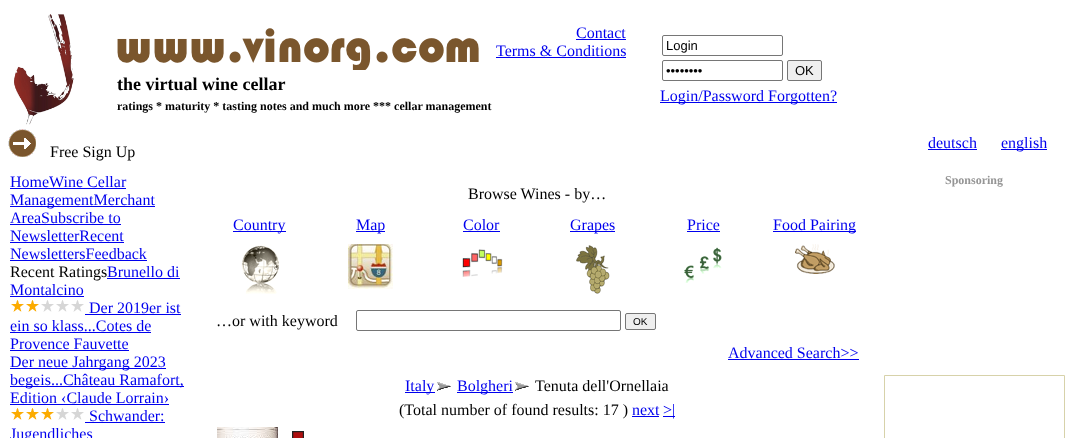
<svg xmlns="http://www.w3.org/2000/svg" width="1085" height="438">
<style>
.a{font:16px Liberation Serif;fill:#00e}
.b{font:bold 18px Liberation Serif;fill:#000}
.c{font:bold 12px Liberation Serif;fill:#000}
.d{font:13px Liberation Sans;fill:#000}
.e{font:16px Liberation Serif;fill:#000}
.f{font:bold 12px Liberation Serif;fill:#959595}
.g{font:10px Liberation Sans;fill:#000}
</style>
<rect width="100%" height="100%" fill="#fff"/>
<image href="1.png" x="14" y="14" width="60" height="111"/>
<image href="2.png" x="117" y="28" width="362" height="42"/>
<path fill="#00e" d="M576 39h50v1H576z"/>
<path fill="#00e" d="M496 57h130v1H496z"/>
<rect fill="none" stroke="#767676" x="662.5" y="35.5" width="120" height="20" rx="1.5"/>
<rect fill="none" stroke="#767676" x="662.5" y="60.5" width="120" height="20" rx="1.5"/>
<rect fill="#efefef" stroke="#767676" x="787.5" y="60.5" width="34" height="20" rx="1.5"/>
<path fill="#00e" d="M660 102h177v1H660z"/>
<path fill="#00e" d="M928 149h49v1H928z"/>
<path fill="#00e" d="M1001 149h46v1H1001z"/>
<image href="3.png" x="8" y="129" width="28" height="28"/>
<path fill="#00e" d="M10 188h116v1H10z"/>
<path fill="#00e" d="M10 206h145v1H10z"/>
<path fill="#00e" d="M10 224h111v1H10z"/>
<path fill="#00e" d="M10 242h114v1H10z"/>
<path fill="#00e" d="M10 260h137v1H10z"/>
<path fill="#00e" d="M107 278h73v1H107z"/>
<path fill="#00e" d="M10 296h74v1H10z"/>
<image href="4.png" x="11" y="300" width="13" height="12"/>
<image href="4.png" x="26" y="300" width="13" height="12"/>
<image href="5.png" x="41" y="300" width="13" height="12"/>
<image href="5.png" x="56" y="300" width="13" height="12"/>
<image href="5.png" x="71" y="300" width="13" height="12"/>
<path fill="#00e" d="M85 314h96v1H85z"/>
<path fill="#00e" d="M10 332h141v1H10z"/>
<path fill="#00e" d="M10 350h119v1H10z"/>
<path fill="#00e" d="M10 368h156v1H10z"/>
<path fill="#00e" d="M10 386h174v1H10z"/>
<path fill="#00e" d="M10 404h159v1H10z"/>
<image href="4.png" x="11" y="408" width="13" height="12"/>
<image href="4.png" x="26" y="408" width="13" height="12"/>
<image href="4.png" x="41" y="408" width="13" height="12"/>
<image href="5.png" x="56" y="408" width="13" height="12"/>
<image href="5.png" x="71" y="408" width="13" height="12"/>
<path fill="#00e" d="M85 422h80v1H85z"/>
<path fill="none" stroke="#d7d2aa" d="M884.5 375.5h180v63H884.5z"/>
<path fill="#00e" d="M233 231h53v1H233z"/>
<image href="6.png" x="241" y="244" width="38" height="50"/>
<path fill="#00e" d="M356 231h29v1H356z"/>
<image href="7.png" x="348" y="244" width="45" height="45"/>
<path fill="#00e" d="M463 231h37v1H463z"/>
<image href="8.png" x="462" y="249" width="41" height="28"/>
<path fill="#00e" d="M570 231h45v1H570z"/>
<image href="9.png" x="576" y="245" width="34" height="49"/>
<path fill="#00e" d="M687 231h33v1H687z"/>
<image href="10.png" x="684" y="247" width="38" height="36"/>
<path fill="#00e" d="M773 231h83v1H773z"/>
<image href="11.png" x="795" y="244" width="40" height="30"/>
<rect fill="none" stroke="#767676" x="356.5" y="310.5" width="264" height="20" rx="1.5"/>
<rect fill="#efefef" stroke="#767676" x="625.5" y="313.5" width="30" height="16" rx="1.5"/>
<path fill="#00e" d="M728 359h131v1H728z"/>
<path fill="#00e" d="M405 392h30v1H405z"/>
<image href="12.png" x="437" y="382" width="14" height="9"/>
<path fill="#00e" d="M457 392h56v1H457z"/>
<image href="12.png" x="515" y="382" width="14" height="9"/>
<path fill="#00e" d="M632 416h27v1H632z"/>
<path fill="#00e" d="M663 416h12v1H663z"/>
<image href="13.png" x="217" y="427" width="61" height="11"/>
<image href="14.png" x="292" y="431" width="12" height="7"/>
<text class="a" x="576" y="38">Contact</text>
<text class="a" x="496" y="56">Terms &amp; Conditions</text>
<text class="b" x="117" y="90">the virtual wine cellar</text>
<text class="c" x="117" y="110">ratings * maturity * tasting notes and much more *** cellar management</text>
<text class="d" x="666" y="50">Login</text>
<text class="d" x="666" y="75">••••••••</text>
<text class="d" x="795" y="75">OK</text>
<text class="a" x="660" y="101">Login/Password Forgotten?</text>
<text class="a" x="928" y="148">deutsch</text>
<text class="a" x="1001" y="148">english</text>
<text class="e" x="50" y="157">Free Sign Up</text>
<text class="a" x="10" y="187">HomeWine Cellar</text>
<text class="a" x="10" y="205">ManagementMerchant</text>
<text class="a" x="10" y="223">AreaSubscribe to</text>
<text class="a" x="10" y="241">NewsletterRecent</text>
<text class="a" x="10" y="259">NewslettersFeedback</text>
<text class="e" x="10" y="277">Recent Ratings</text>
<text class="a" x="107" y="277">Brunello di</text>
<text class="a" x="10" y="295">Montalcino</text>
<text class="a" x="89" y="313">Der 2019er ist</text>
<text class="a" x="10" y="331">ein so klass...Cotes de</text>
<text class="a" x="10" y="349">Provence Fauvette</text>
<text class="a" x="10" y="367">Der neue Jahrgang 2023</text>
<text class="a" x="10" y="385">begeis...Château Ramafort,</text>
<text class="a" x="10" y="403">Edition ‹Claude Lorrain›</text>
<text class="a" x="89" y="421">Schwander:</text>
<text class="a" x="10" y="439">Jugendliches</text>
<text class="f" x="945" y="184">Sponsoring</text>
<text class="e" x="468" y="199">Browse Wines - by…</text>
<text class="a" x="233" y="230">Country</text>
<text class="a" x="356" y="230">Map</text>
<text class="a" x="463" y="230">Color</text>
<text class="a" x="570" y="230">Grapes</text>
<text class="a" x="687" y="230">Price</text>
<text class="a" x="773" y="230">Food Pairing</text>
<text class="e" x="216" y="326">…or with keyword</text>
<text class="g" x="633" y="325">OK</text>
<text class="a" x="728" y="358">Advanced Search&gt;&gt;</text>
<text class="a" x="405" y="391">Italy</text>
<text class="a" x="457" y="391">Bolgheri</text>
<text class="e" x="535" y="391">Tenuta dell'Ornellaia</text>
<text class="e" x="399" y="415">(Total number of found results: 17 )</text>
<text class="a" x="632" y="415">next</text>
<text class="a" x="663" y="415">&gt;|</text>
</svg>
